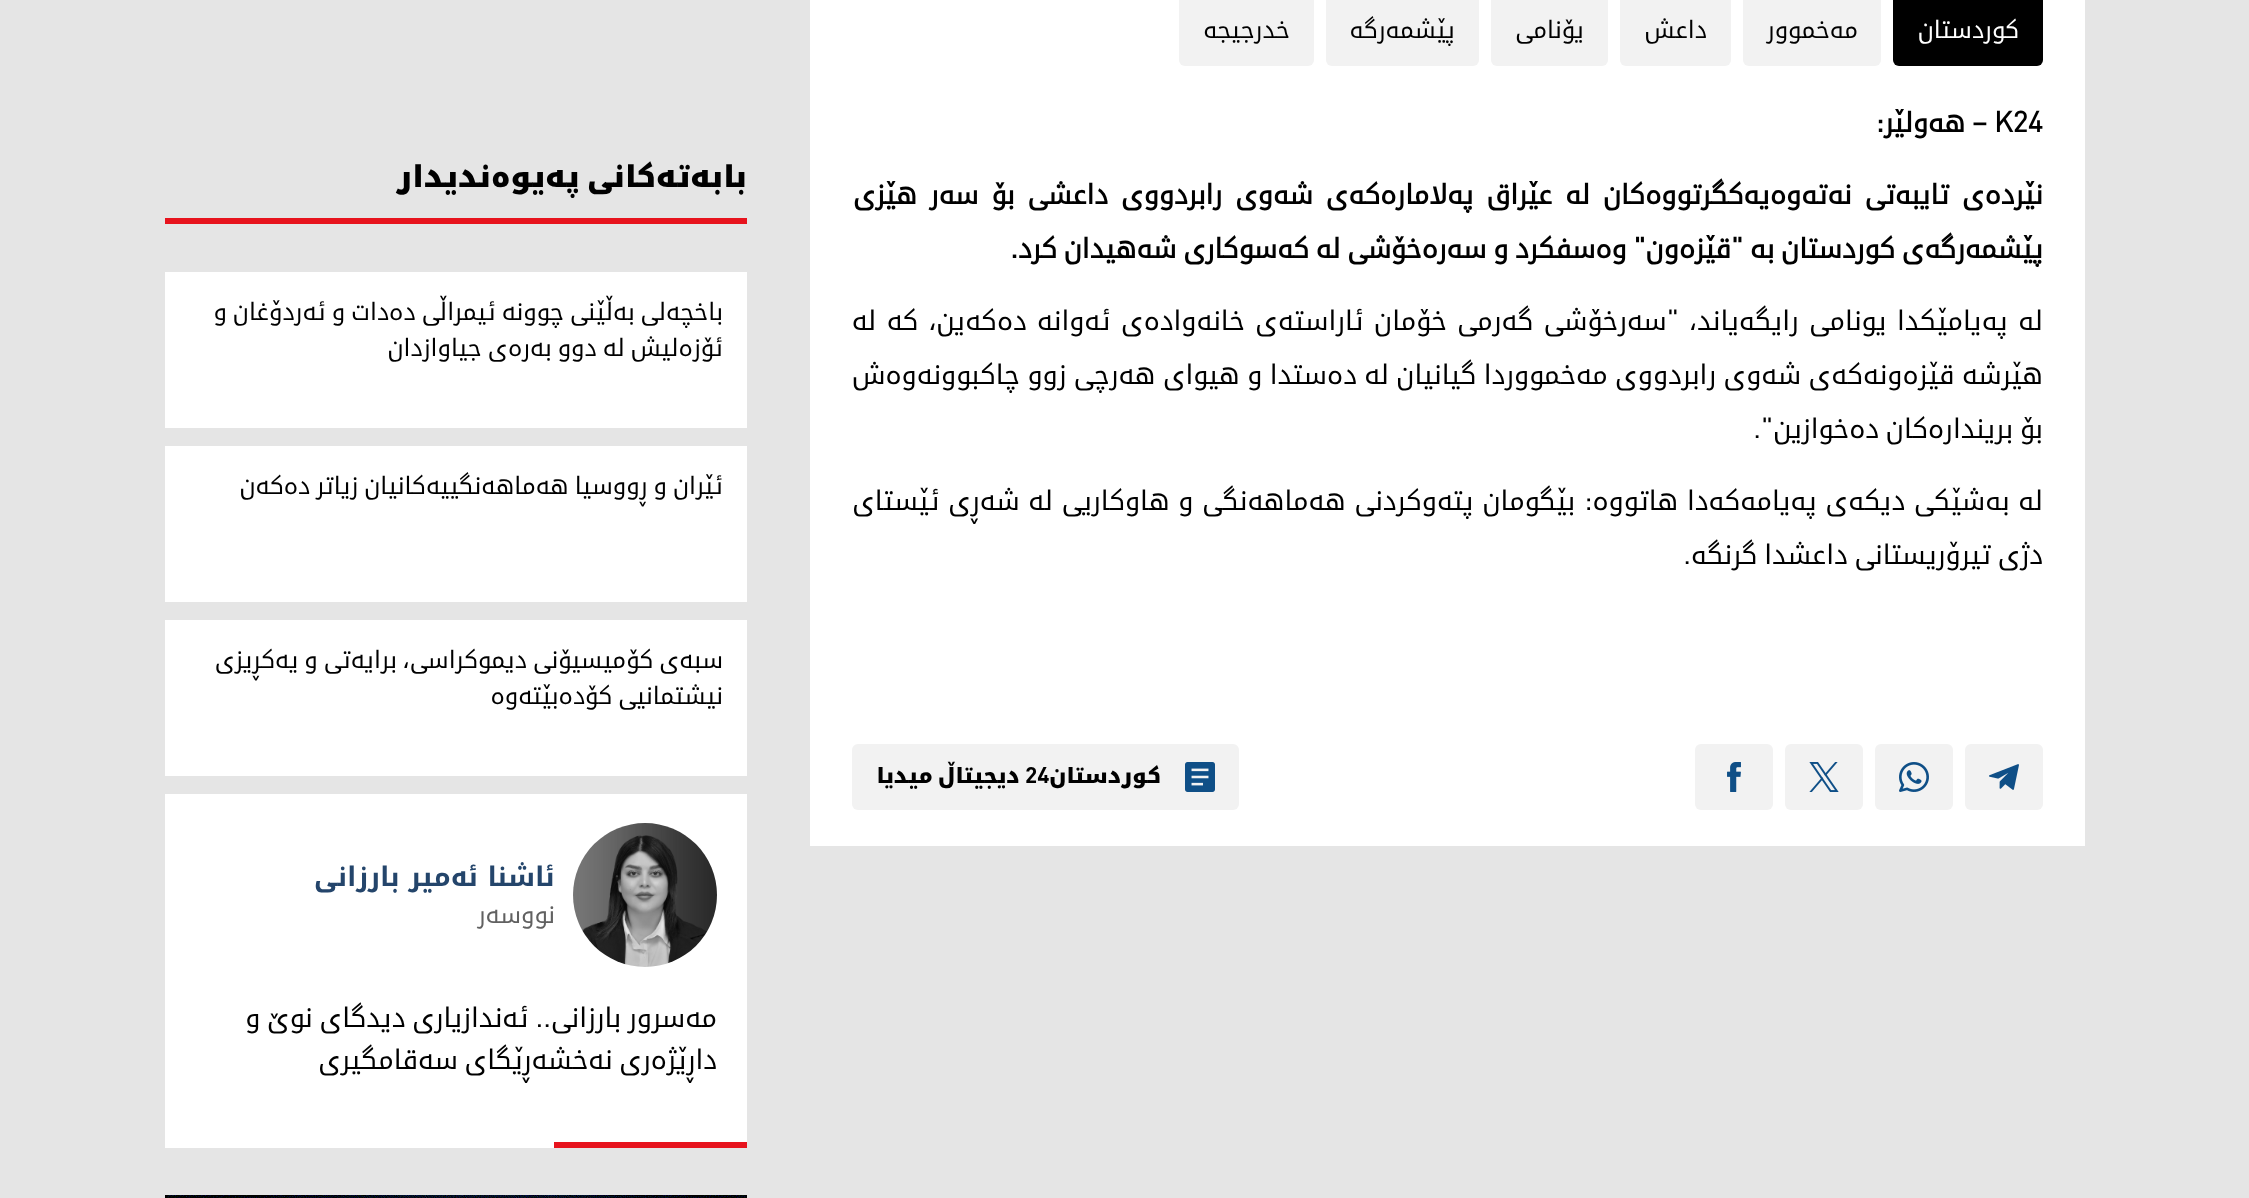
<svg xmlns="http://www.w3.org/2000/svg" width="2249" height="1198">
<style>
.a{font:24px 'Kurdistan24';direction:rtl;fill:#fff}
.b{font:24px 'Kurdistan24';direction:rtl;fill:#000}
.c{font:bold 27px 'Kurdistan24';fill:#000}
.d{font:bold 27px 'Kurdistan24';direction:rtl;fill:#000}
.e{font:27px 'Kurdistan24';direction:rtl;fill:#000}
.f{font:bold 21px 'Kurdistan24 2';direction:rtl;fill:#000}
.g{font:bold 21px 'Kurdistan24 2';fill:#000}
.h{font:bold 30px 'Kurdistan24 2';direction:rtl;fill:#000}
.i{font:500 27px 'Kurdistan24';direction:rtl;fill:#24456b}
.j{font:24px 'Kurdistan24';direction:rtl;fill:#616161}
</style>
<rect width="100%" height="100%" fill="#e5e5e5"/>
<path fill="#fff" d="M810 0h1275v846H810z"/>
<rect fill="#000" x="1893" y="-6" width="150" height="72" rx="6"/>
<rect fill="#f2f2f2" x="1743" y="-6" width="138" height="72" rx="6"/>
<rect fill="#f2f2f2" x="1620" y="-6" width="111" height="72" rx="6"/>
<rect fill="#f2f2f2" x="1491" y="-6" width="117" height="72" rx="6"/>
<rect fill="#f2f2f2" x="1326" y="-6" width="153" height="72" rx="6"/>
<rect fill="#f2f2f2" x="1179" y="-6" width="135" height="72" rx="6"/>
<rect fill="#f2f2f2" x="1965" y="744" width="78" height="66" rx="6"/>
<image href="1.png" x="1989" y="764" width="30" height="26"/>
<rect fill="#f2f2f2" x="1875" y="744" width="78" height="66" rx="6"/>
<image href="2.png" x="1899" y="762" width="30" height="30"/>
<rect fill="#f2f2f2" x="1785" y="744" width="78" height="66" rx="6"/>
<image href="3.png" x="1809" y="762" width="30" height="30"/>
<rect fill="#f2f2f2" x="1695" y="744" width="78" height="66" rx="6"/>
<image href="4.png" x="1727" y="762" width="14" height="30"/>
<rect fill="#f2f2f2" x="852" y="744" width="387" height="66" rx="6"/>
<image href="5.png" x="1185" y="762" width="30" height="30"/>
<path fill="#e7131d" d="M165 218h582v6H165z"/>
<path fill="#fff" d="M165 272h582v156H165z"/>
<path fill="#fff" d="M165 446h582v156H165z"/>
<path fill="#fff" d="M165 620h582v156H165z"/>
<path fill="#fff" d="M165 794h582v354H165z"/>
<image href="6.png" x="573" y="823" width="144" height="144"/>
<path fill="#e7131d" d="M554 1142h193v6H554z"/>
<image href="7.png" x="165" y="1195" width="582" height="3"/>
<text class="a" x="2019" y="38">کوردستان</text>
<text class="b" x="1858" y="38">مه‌خموور</text>
<text class="b" x="1707" y="38">داعش</text>
<text class="b" x="1584" y="38">یۆنامی</text>
<text class="b" x="1455" y="38">پێشمه‌رگه‌</text>
<text class="b" x="1290" y="38">خدرجیجه‌</text>
<text class="c" x="1994" y="132">K24</text>
<text class="d" x="1987" y="132">– هه‌ولێر:</text>
<text class="d" x="2043" y="204" word-spacing="6.25">نێرده‌ی تایبه‌تی نه‌ته‌وه‌یه‌كگرتووه‌كان له‌ عێراق په‌لاماره‌كه‌ی شه‌وی رابردووی داعشی بۆ سه‌ر هێزی</text>
<text class="d" x="2043" y="258">پێشمه‌رگه‌ی كوردستان به‌ "قێزه‌ون" وه‌سفكرد و سه‌ره‌خۆشی له‌ كه‌سوكاری شه‌هیدان كرد.</text>
<text class="e" x="2043" y="330" word-spacing="3.6">له‌ په‌یامێكدا یونامی رایگه‌یاند، "سەرخۆشی گەرمی خۆمان ئاراستەی خانەوادەی ئەوانە دەکەین، کە لە</text>
<text class="e" x="2043" y="384" word-spacing="0.6">هێرشە قێزەونەکەی شەوی رابردووی مەخمووردا گیانیان لە دەستدا و هیوای هەرچی زوو چاکبوونەوەش</text>
<text class="e" x="2043" y="438">بۆ بریندارەکان دەخوازین".</text>
<text class="e" x="2043" y="510" word-spacing="2">له‌ به‌شێكی دیكه‌ی په‌یامه‌كه‌دا هاتووه‌: بێگومان پتەوکردنی هەماهەنگی و هاوکاریی لە شەڕی ئێستای</text>
<text class="e" x="2043" y="564">دژی تیرۆریستانی داعشدا گرنگه‌.</text>
<text class="f" x="1161" y="783">کوردستان</text>
<text class="g" x="1025" y="783">24</text>
<text class="f" x="1020" y="783">دیجیتاڵ میدیا</text>
<text class="h" x="747" y="187">بابەتەکانی پەیوەندیدار</text>
<text class="b" x="723" y="320">باخچەلی بەڵێنی چوونە ئیمراڵی دەدات و ئەردۆغان و</text>
<text class="b" x="723" y="356">ئۆزەلیش لە دوو بەرەی جیاوازدان</text>
<text class="b" x="723" y="494">ئێران و ڕووسیا هەماهەنگییەکانیان زیاتر دەکەن</text>
<text class="b" x="723" y="668">سبەی کۆمیسیۆنی دیموکراسی، برایەتی و یەکڕیزی</text>
<text class="b" x="723" y="704">نیشتمانیی کۆدەبێتەوە</text>
<text class="i" x="555" y="886">ئاشنا ئەمیر بارزانی</text>
<text class="j" x="555" y="923">نووسەر</text>
<text class="e" x="717" y="1027">مەسرور بارزانی.. ئەندازیاری دیدگای نوێ و</text>
<text class="e" x="717" y="1069">داڕێژەری نەخشەڕێگای سەقامگیری</text>
</svg>
